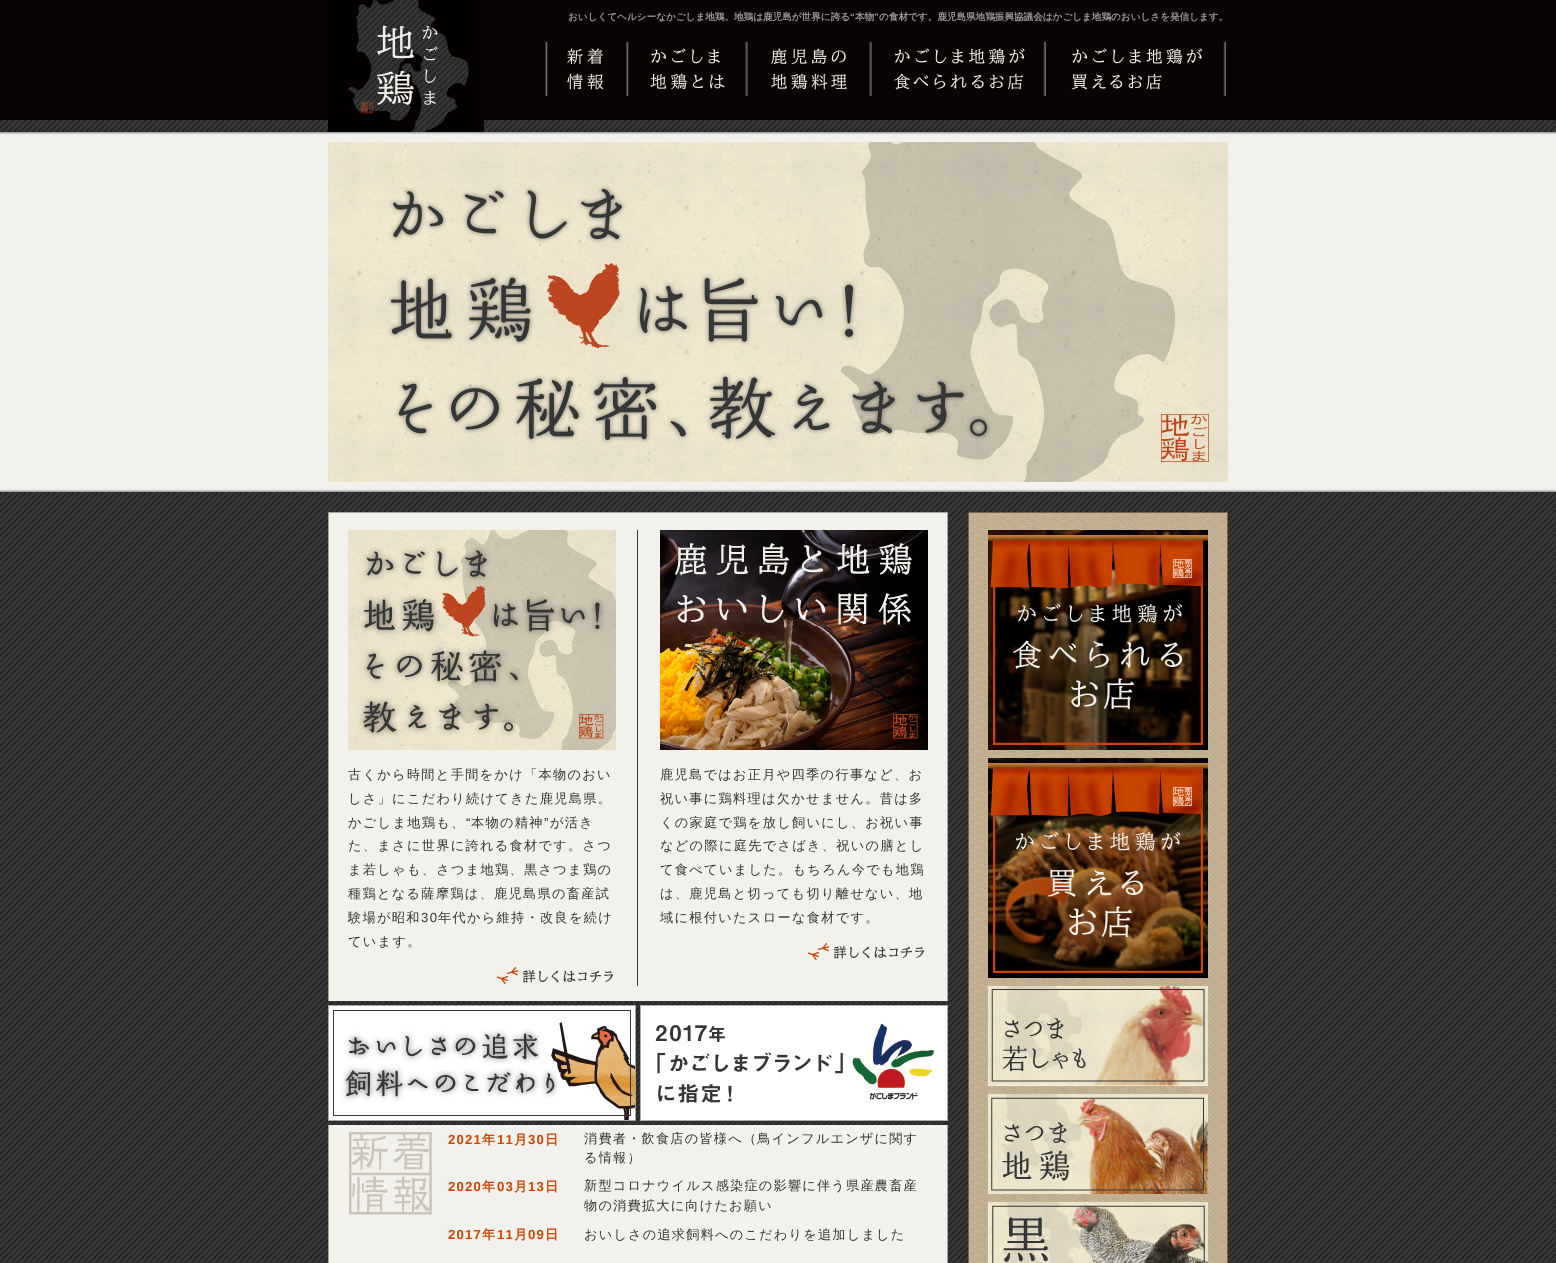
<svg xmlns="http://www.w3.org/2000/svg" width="1556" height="1263">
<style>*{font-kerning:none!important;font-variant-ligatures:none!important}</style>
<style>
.a{font:bold 9.6px WenQuanYi Zen Hei;fill:#9c9c9c}
.b{font:bold 9.6px Liberation Sans;fill:#9c9c9c}
.c{font:500 13.2px WenQuanYi Zen Hei;letter-spacing:1.3px;fill:#363636}
.d{font:13.2px Liberation Sans;letter-spacing:1.3px;fill:#363636}
.e{font:bold 13.2px Liberation Sans;letter-spacing:1.2px;fill:#c94500}
.f{font:bold 13.2px WenQuanYi Zen Hei;letter-spacing:1.2px;fill:#c94500}
.g{font:500 13.2px WenQuanYi Zen Hei;letter-spacing:1.2px;fill:#363636}
</style>
<rect width="100%" height="100%" fill="#fff"/>
<image href="1.png" x="0" y="492" width="1556" height="771"/>
<image href="2.png" x="0" y="0" width="1556" height="492"/>
<image href="3.png" x="328" y="513" width="900" height="750"/>
<image href="4.png" x="328" y="0" width="900" height="513"/>
<image href="5.png" x="545" y="42" width="82" height="54"/>
<image href="6.png" x="627" y="42" width="98" height="54"/>
<image href="7.png" x="745" y="42" width="125" height="54"/>
<image href="8.png" x="870" y="42" width="175" height="54"/>
<image href="9.png" x="1045" y="42" width="181" height="54"/>
<image href="10.png" x="328" y="142" width="900" height="340"/>
<path fill="#363636" d="M637 530h1v456H637z"/>
<image href="11.png" x="348" y="530" width="268" height="220"/>
<image href="12.png" x="497" y="967" width="116" height="17"/>
<image href="13.png" x="660" y="530" width="268" height="220"/>
<image href="12.png" x="808" y="943" width="116" height="17"/>
<image href="14.png" x="328" y="1001" width="620" height="124"/>
<image href="15.png" x="328" y="1005" width="308" height="116"/>
<image href="16.png" x="640" y="1005" width="308" height="116"/>
<image href="17.png" x="349" y="1132" width="83" height="83"/>
<image href="18.png" x="988" y="530" width="220" height="220"/>
<image href="19.png" x="988" y="758" width="220" height="220"/>
<image href="20.png" x="988" y="986" width="220" height="100"/>
<image href="21.png" x="988" y="1094" width="220" height="100"/>
<image href="22.png" x="988" y="1202" width="220" height="61"/>
<text class="a" x="568" y="20">おいしくてヘルシーなかごしま地鶏。地鶏は鹿児島が世界に誇る</text>
<text class="b" x="850" y="20">“</text>
<text class="a" x="855" y="20">本物</text>
<text class="b" x="874" y="20">”</text>
<text class="a" x="879" y="20">の食材です。鹿児島県地鶏振興協議会はかごしま地鶏のおいしさを発信します。</text>
<text class="c" x="348" y="779">古くから時間と手間をかけ「本物のおい</text>
<text class="c" x="348" y="803">しさ」にこだわり続けてきた鹿児島県。</text>
<text class="c" x="348" y="827">かごしま地鶏も、</text>
<text class="d" x="466" y="827">“</text>
<text class="c" x="471" y="827">本物の精神</text>
<text class="d" x="544" y="827">”</text>
<text class="c" x="550" y="827">が活き</text>
<text class="c" x="348" y="850">た、まさに世界に誇れる食材です。さつ</text>
<text class="c" x="348" y="874">ま若しゃも、さつま地鶏、黒さつま鶏の</text>
<text class="c" x="348" y="898">種鶏となる薩摩鶏は、鹿児島県の畜産試</text>
<text class="c" x="348" y="922">験場が昭和</text>
<text class="d" x="421" y="922">30</text>
<text class="c" x="438" y="922">年代から維持・改良を続け</text>
<text class="c" x="348" y="946">ています。</text>
<text class="c" x="660" y="779">鹿児島ではお正月や四季の行事など、お</text>
<text class="c" x="660" y="803">祝い事に鶏料理は欠かせません。昔は多</text>
<text class="c" x="660" y="827">くの家庭で鶏を放し飼いにし、お祝い事</text>
<text class="c" x="660" y="850">などの際に庭先でさばき、祝いの膳とし</text>
<text class="c" x="660" y="874">て食べていました。もちろん今でも地鶏</text>
<text class="c" x="660" y="898">は、鹿児島と切っても切り離せない、地</text>
<text class="c" x="660" y="922">域に根付いたスローな食材です。</text>
<text class="e" x="448" y="1144">2021</text>
<text class="f" x="482" y="1144">年</text>
<text class="e" x="497" y="1144">11</text>
<text class="f" x="514" y="1144">月</text>
<text class="e" x="528" y="1144">30</text>
<text class="f" x="545" y="1144">日</text>
<text class="g" x="584" y="1143">消費者・飲食店の皆様へ（鳥インフルエンザに関す</text>
<text class="g" x="584" y="1162">る情報）</text>
<text class="e" x="448" y="1191">2020</text>
<text class="f" x="482" y="1191">年</text>
<text class="e" x="497" y="1191">03</text>
<text class="f" x="514" y="1191">月</text>
<text class="e" x="528" y="1191">13</text>
<text class="f" x="545" y="1191">日</text>
<text class="g" x="584" y="1190">新型コロナウイルス感染症の影響に伴う県産農畜産</text>
<text class="g" x="584" y="1210">物の消費拡大に向けたお願い</text>
<text class="e" x="448" y="1239">2017</text>
<text class="f" x="482" y="1239">年</text>
<text class="e" x="497" y="1239">11</text>
<text class="f" x="514" y="1239">月</text>
<text class="e" x="528" y="1239">09</text>
<text class="f" x="545" y="1239">日</text>
<text class="g" x="584" y="1239">おいしさの追求飼料へのこだわりを追加しました</text>
</svg>
